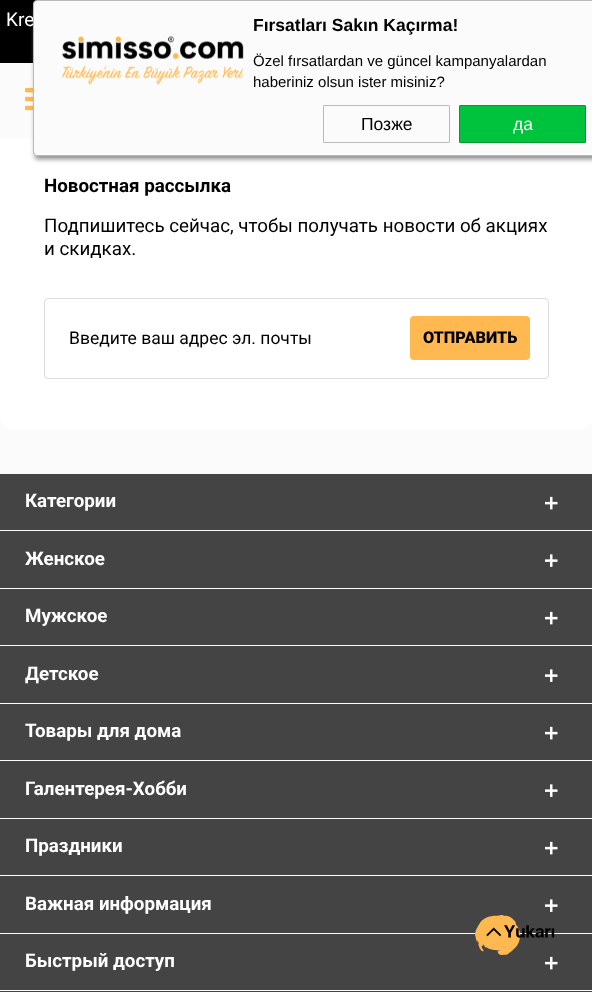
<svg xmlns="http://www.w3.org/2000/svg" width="592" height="992">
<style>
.a{font:19px Roboto;fill:#fff}
.b{font:bold 18.75px Roboto;fill:#000}
.c{font:18.75px Roboto;fill:#000}
.d{font:17.5px Roboto;fill:#000}
.e{font:900 16.25px Roboto;fill:#000}
.f{font:bold 18.75px Roboto;fill:#fff}
.g{font:bold 17.5px Liberation Sans;fill:#000}
.h{font:15px Liberation Sans;fill:#000}
.i{font:17.5px Liberation Sans;fill:#000}
.j{font:17.5px Liberation Sans;fill:#fff}
</style>
<rect width="100%" height="100%" fill="#fbfbfb"/>
<path fill="#000" d="M0 0h37v63H0z"/>
<rect fill="#fff" y="108" width="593" height="322" rx="13"/>
<path fill="#fbfbfb" d="M0 108h33v30H0z"/>
<image href="1.png" x="25" y="87" width="8" height="24"/>
<path fill="#444" d="M0 876h592v57H0z"/>
<path fill="#444" d="M0 934h592v56H0z"/>
<image href="2.png" x="475" y="915" width="80" height="40"/>
<rect fill="none" stroke="#dcdcdc" x="44.5" y="298.5" width="504" height="80" rx="3.5"/>
<rect fill="#ffb950" x="410" y="316" width="120" height="44" rx="4"/>
<path fill="#444" d="M0 474h592v56H0z"/>
<image href="3.png" x="545" y="496" width="13" height="14"/>
<path fill="#444" d="M0 531h592v57H0z"/>
<image href="4.png" x="545" y="554" width="13" height="13"/>
<path fill="#444" d="M0 589h592v56H0z"/>
<image href="3.png" x="545" y="611" width="13" height="14"/>
<path fill="#444" d="M0 646h592v57H0z"/>
<image href="4.png" x="545" y="669" width="13" height="13"/>
<path fill="#444" d="M0 704h592v56H0z"/>
<image href="3.png" x="545" y="726" width="13" height="14"/>
<path fill="#444" d="M0 761h592v57H0z"/>
<image href="4.png" x="545" y="784" width="13" height="13"/>
<path fill="#444" d="M0 819h592v56H0z"/>
<image href="3.png" x="545" y="841" width="13" height="14"/>
<image href="4.png" x="545" y="899" width="13" height="13"/>
<image href="3.png" x="545" y="956" width="13" height="14"/>
<path fill="#444" d="M0 991h592v1H0z"/>
<rect fill="#888" filter="blur(2.5px)" x="35" y="8" width="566" height="151" rx="1"/>
<text class="a" x="6" y="26">Kre</text>
<text class="b" x="44" y="192">Новостная рассылка</text>
<text class="c" x="44" y="232">Подпишитесь сейчас, чтобы получать новости об акциях</text>
<text class="c" x="44" y="255">и скидках.</text>
<text class="d" x="69" y="344">Введите ваш адрес эл. почты</text>
<text class="e" x="423" y="343">ОТПРАВИТЬ</text>
<text class="f" x="25" y="507">Категории</text>
<text class="f" x="25" y="565">Женское</text>
<text class="f" x="25" y="622">Мужское</text>
<text class="f" x="25" y="680">Детское</text>
<text class="f" x="25" y="737">Товары для дома</text>
<text class="f" x="25" y="795">Галентерея-Хобби</text>
<text class="f" x="25" y="852">Праздники</text>
<text class="f" x="25" y="910">Важная информация</text>
<text class="f" x="25" y="967">Быстрый доступ</text>
<rect fill="#fbfbfb" stroke="#bababa" x="33.5" y="0.5" width="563" height="155" rx="3.5"/>
<image href="5.png" x="62" y="36" width="182" height="49"/>
<text class="g" x="253" y="31">Fırsatları Sakın Kaçırma!</text>
<text class="h" x="253" y="66">Özel fırsatlardan ve güncel kampanyalardan</text>
<text class="h" x="253" y="87">haberiniz olsun ister misiniz?</text>
<rect fill="none" stroke="#bababa" x="323.5" y="105.5" width="126" height="37" rx="0.5"/>
<text class="i" x="361" y="130">Позже</text>
<rect fill="#00c33d" stroke="#059833" x="459.5" y="105.5" width="126" height="37" rx="0.5"/>
<text class="j" x="513" y="130">да</text>
</svg>
